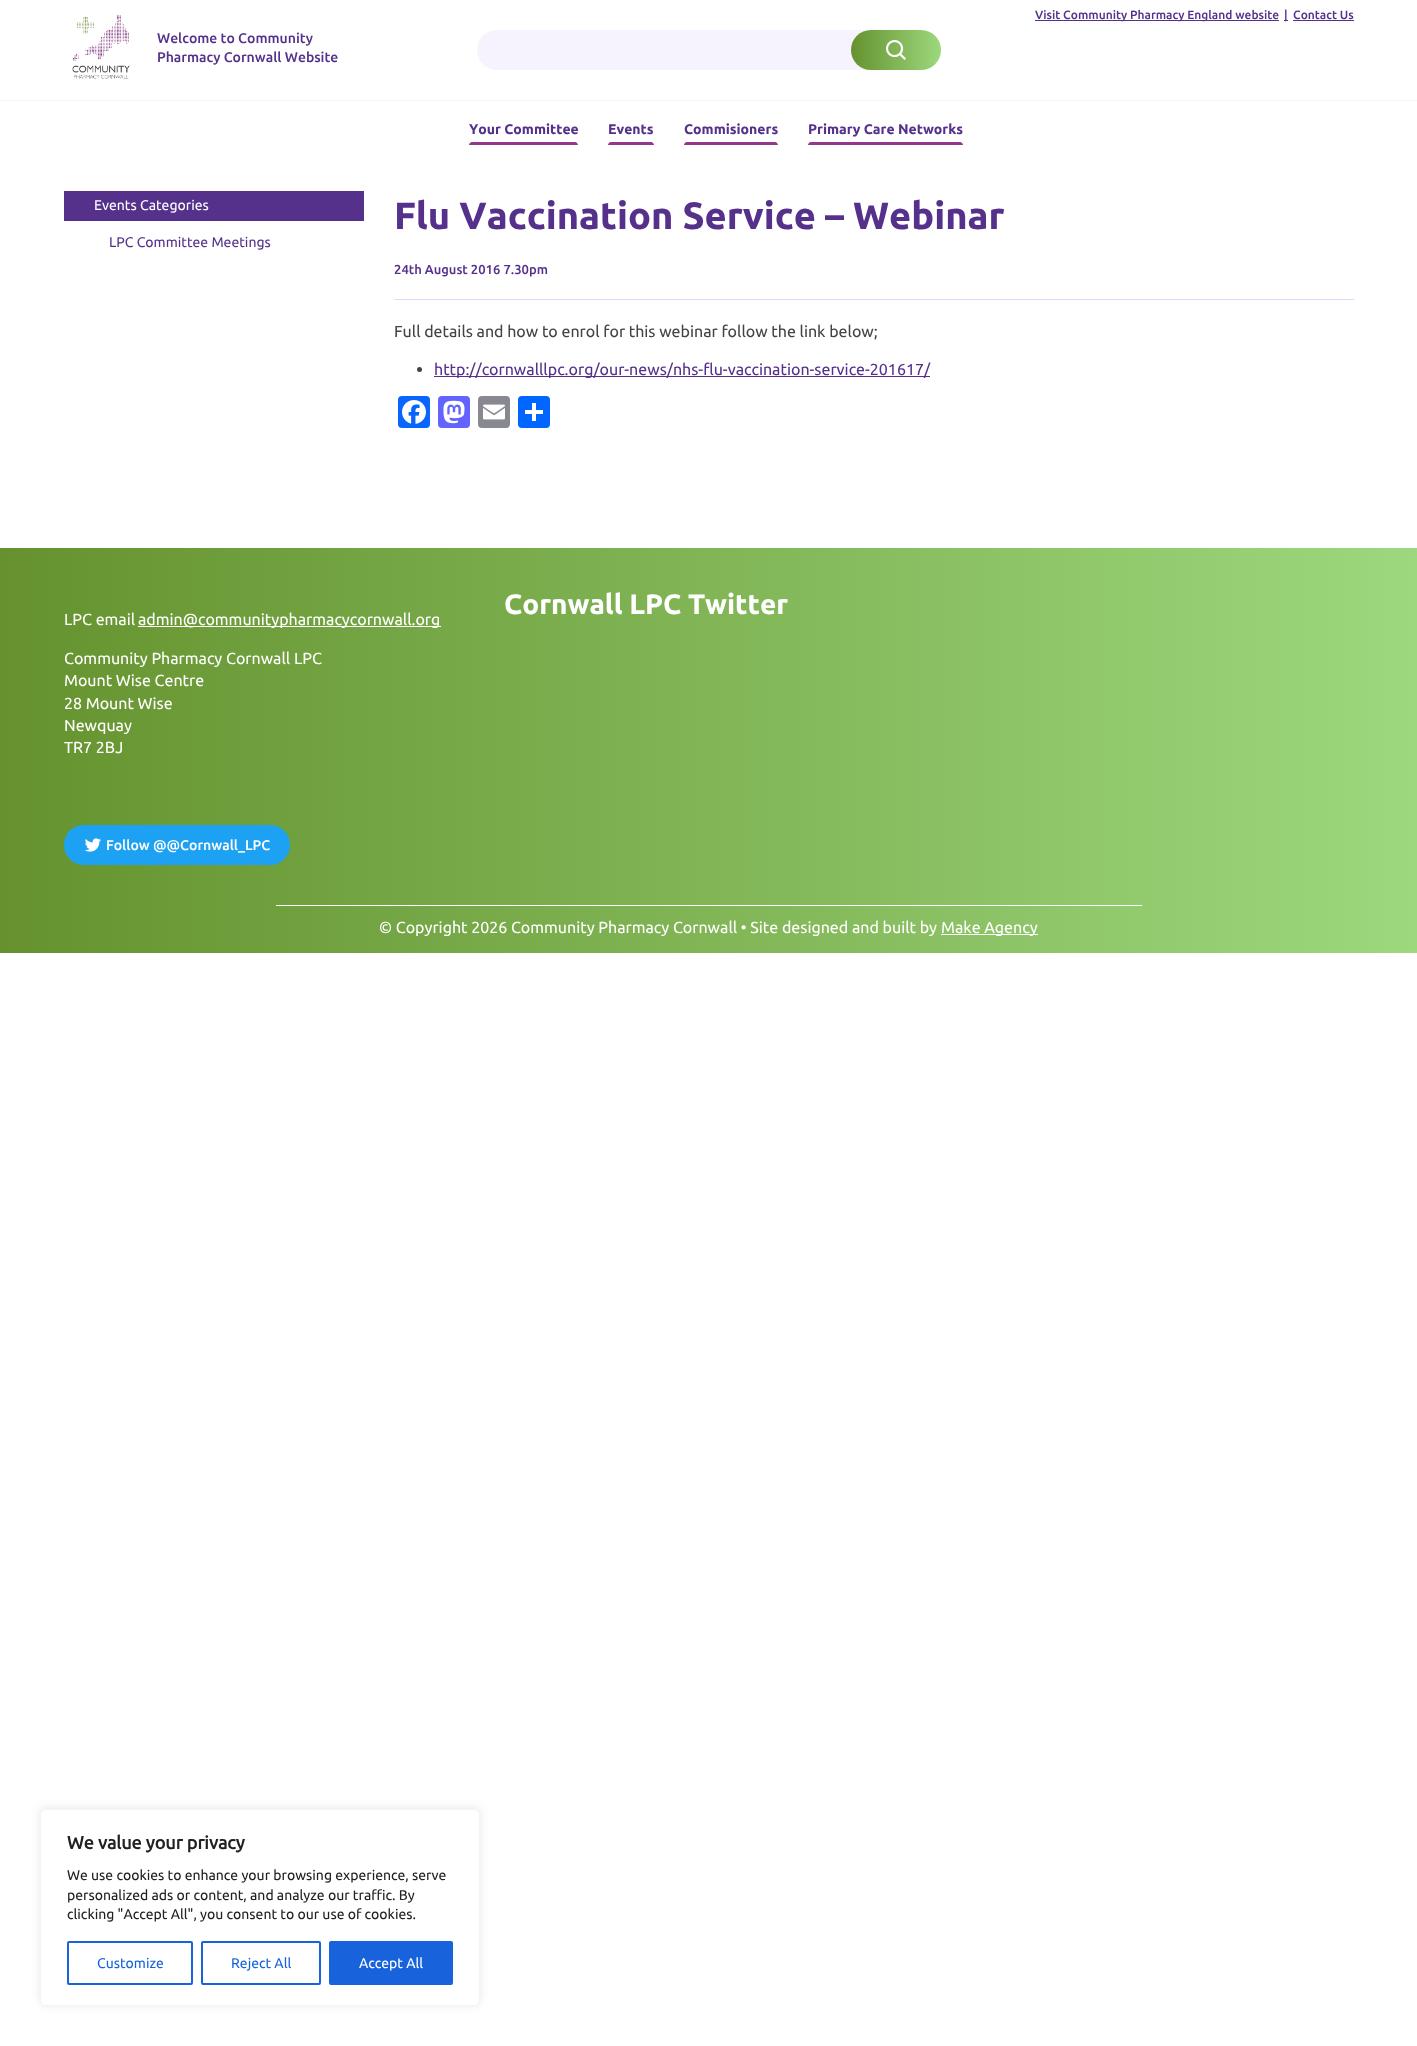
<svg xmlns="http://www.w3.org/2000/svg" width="1417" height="2046">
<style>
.a{font:500 12px Ubuntu;fill:#55318c}
.b{font:500 14px Ubuntu;fill:#55318c}
.c{font:bold 14px Ubuntu;fill:#55318c}
.d{font:14px Ubuntu;fill:#fff}
.e{font:14px Ubuntu;fill:#55318c}
.f{font:bold 38px Ubuntu;fill:#55318c}
.g{font:500 13px Ubuntu;fill:#55318c}
.h{font:16px Ubuntu;fill:#444}
.i{font:16px Ubuntu;fill:#55318c}
.j{font:bold 28px Ubuntu;fill:#fff}
.k{font:16px Ubuntu;fill:#fff}
.l{font:500 14px Ubuntu;fill:#fff}
.m{font:bold 18px 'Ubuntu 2';fill:#212121}
.n{font:14px Ubuntu;fill:#212121}
.o{font:14px Ubuntu;fill:#1863dc}
</style>
<defs>
<linearGradient id="g1" gradientUnits="userSpaceOnUse" x1="851" y1="50" x2="941" y2="50"><stop offset="0" stop-color="#65922e"/><stop offset="1" stop-color="#9dd87e"/></linearGradient>
<linearGradient id="g2" gradientUnits="userSpaceOnUse" x1="0" y1="751" x2="1417" y2="751"><stop offset="0" stop-color="#65922e"/><stop offset="1" stop-color="#9dd87e"/></linearGradient>
</defs>
<rect width="100%" height="100%" fill="#fff"/>
<path fill="#55318c" d="M1035 20h244v1H1035z"/>
<path fill="#55318c" d="M1284 20h4v1H1284z"/>
<path fill="#55318c" d="M1293 20h61v1H1293z"/>
<image href="1.png" x="72" y="15" width="58" height="64"/>
<path fill="#f6f3ff" d="M497 30h374v40h-374c-11 0-20-9-20-20c0-11 9-20 20-20z"/>
<rect fill="url(#g1)" x="851" y="30" width="90" height="40" rx="20"/>
<image href="2.png" x="886" y="40" width="20" height="20"/>
<path fill="#f6f3ff" d="M0 100h1417v1H0z"/>
<path fill="#93378a" d="M472 142h103c1.5 0 3 1.5 3 3h-109c0-1.5 1.5-3 3-3z"/>
<path fill="#93378a" d="M611 142h40c1.5 0 3 1.5 3 3h-46c0-1.5 1.5-3 3-3z"/>
<path fill="#93378a" d="M687 142h88c1.5 0 3 1.5 3 3h-94c0-1.5 1.5-3 3-3z"/>
<path fill="#93378a" d="M811 142h149c1.5 0 3 1.5 3 3h-155c0-1.5 1.5-3 3-3z"/>
<path fill="#55318c" d="M64 191h300v30H64z"/>
<path fill="#e3d7ff" d="M394 299h960v1H394z"/>
<circle fill="#444" cx="419.5" cy="369.5" r="2.5"/>
<path fill="#55318c" d="M434 376h496v1H434z"/>
<rect fill="#0866ff" x="398" y="396" width="32" height="32" rx="4"/>
<image href="3.png" x="402" y="400" width="24" height="24"/>
<rect fill="#6364ff" x="438" y="396" width="32" height="32" rx="4"/>
<image href="4.png" x="443" y="400" width="22" height="24"/>
<rect fill="#888990" x="478" y="396" width="32" height="32" rx="4"/>
<image href="5.png" x="483" y="404" width="22" height="16"/>
<rect fill="#0166ff" x="518" y="396" width="32" height="32" rx="4"/>
<path fill="#fff" d="M532 403h4v18H532z"/>
<path fill="#fff" d="M525 410h18v4H525z"/>
<path fill="url(#g2)" d="M0 548h1417v405H0z"/>
<path fill="#fff" d="M138 626h303v1H138z"/>
<rect fill="#1da1f2" x="64" y="825" width="226" height="40" rx="20"/>
<image href="6.png" x="84" y="838" width="17" height="14"/>
<path fill="#fff" d="M276 905h866v1H276z"/>
<path fill="#fff" d="M941 934h97v1H941z"/>
<rect fill="#acabab4d" filter="blur(5px)" x="40" y="1808" width="440" height="197" rx="6"/>
<rect fill="#fff" stroke="#f4f4f4" x="40.5" y="1809.5" width="439" height="196" rx="5.5"/>
<rect fill="none" stroke="#1863dc" stroke-width="2" x="68" y="1942" width="124" height="42" rx="1"/>
<rect fill="none" stroke="#1863dc" stroke-width="2" x="202" y="1942" width="118" height="42" rx="1"/>
<rect fill="#1863dc" stroke="#1863dc" stroke-width="2" x="330" y="1942" width="122" height="42" rx="1"/>
<text class="a" x="1035" y="19">Visit Community Pharmacy England website</text>
<text class="a" x="1284" y="19">|</text>
<text class="a" x="1293" y="19">Contact Us</text>
<text class="b" x="157" y="43">Welcome to Community</text>
<text class="b" x="157" y="62">Pharmacy Cornwall Website</text>
<text class="c" x="469" y="134">Your Committee</text>
<text class="c" x="608" y="134">Events</text>
<text class="c" x="684" y="134">Commisioners</text>
<text class="c" x="808" y="134">Primary Care Networks</text>
<text class="d" x="94" y="210">Events Categories</text>
<text class="e" x="109" y="247">LPC Committee Meetings</text>
<text class="f" x="394" y="229">Flu Vaccination Service – Webinar</text>
<text class="g" x="394" y="274">24th August 2016 7.30pm</text>
<text class="h" x="394" y="337">Full details and how to enrol for this webinar follow the link below;</text>
<text class="i" x="434" y="375">http://cornwalllpc.org/our-news/nhs-flu-vaccination-service-201617/</text>
<text class="j" x="504" y="614">Cornwall LPC Twitter</text>
<text class="k" x="64" y="625">LPC email</text>
<text class="k" x="138" y="625">admin@communitypharmacycornwall.org</text>
<text class="k" x="64" y="664">Community Pharmacy Cornwall LPC</text>
<text class="k" x="64" y="686">Mount Wise Centre</text>
<text class="k" x="64" y="709">28 Mount Wise</text>
<text class="k" x="64" y="731">Newquay</text>
<text class="k" x="64" y="753">TR7 2BJ</text>
<text class="l" x="106" y="850">Follow @@Cornwall_LPC</text>
<text class="k" x="379" y="933">© Copyright 2026 Community Pharmacy Cornwall • Site designed and built by</text>
<text class="k" x="941" y="933">Make Agency</text>
<text class="m" x="67" y="1849">We value your privacy</text>
<text class="n" x="67" y="1880">We use cookies to enhance your browsing experience, serve</text>
<text class="n" x="67" y="1900">personalized ads or content, and analyze our traffic. By</text>
<text class="n" x="67" y="1919">clicking "Accept All", you consent to our use of cookies.</text>
<text class="o" x="97" y="1968">Customize</text>
<text class="o" x="231" y="1968">Reject All</text>
<text class="d" x="359" y="1968">Accept All</text>
</svg>
